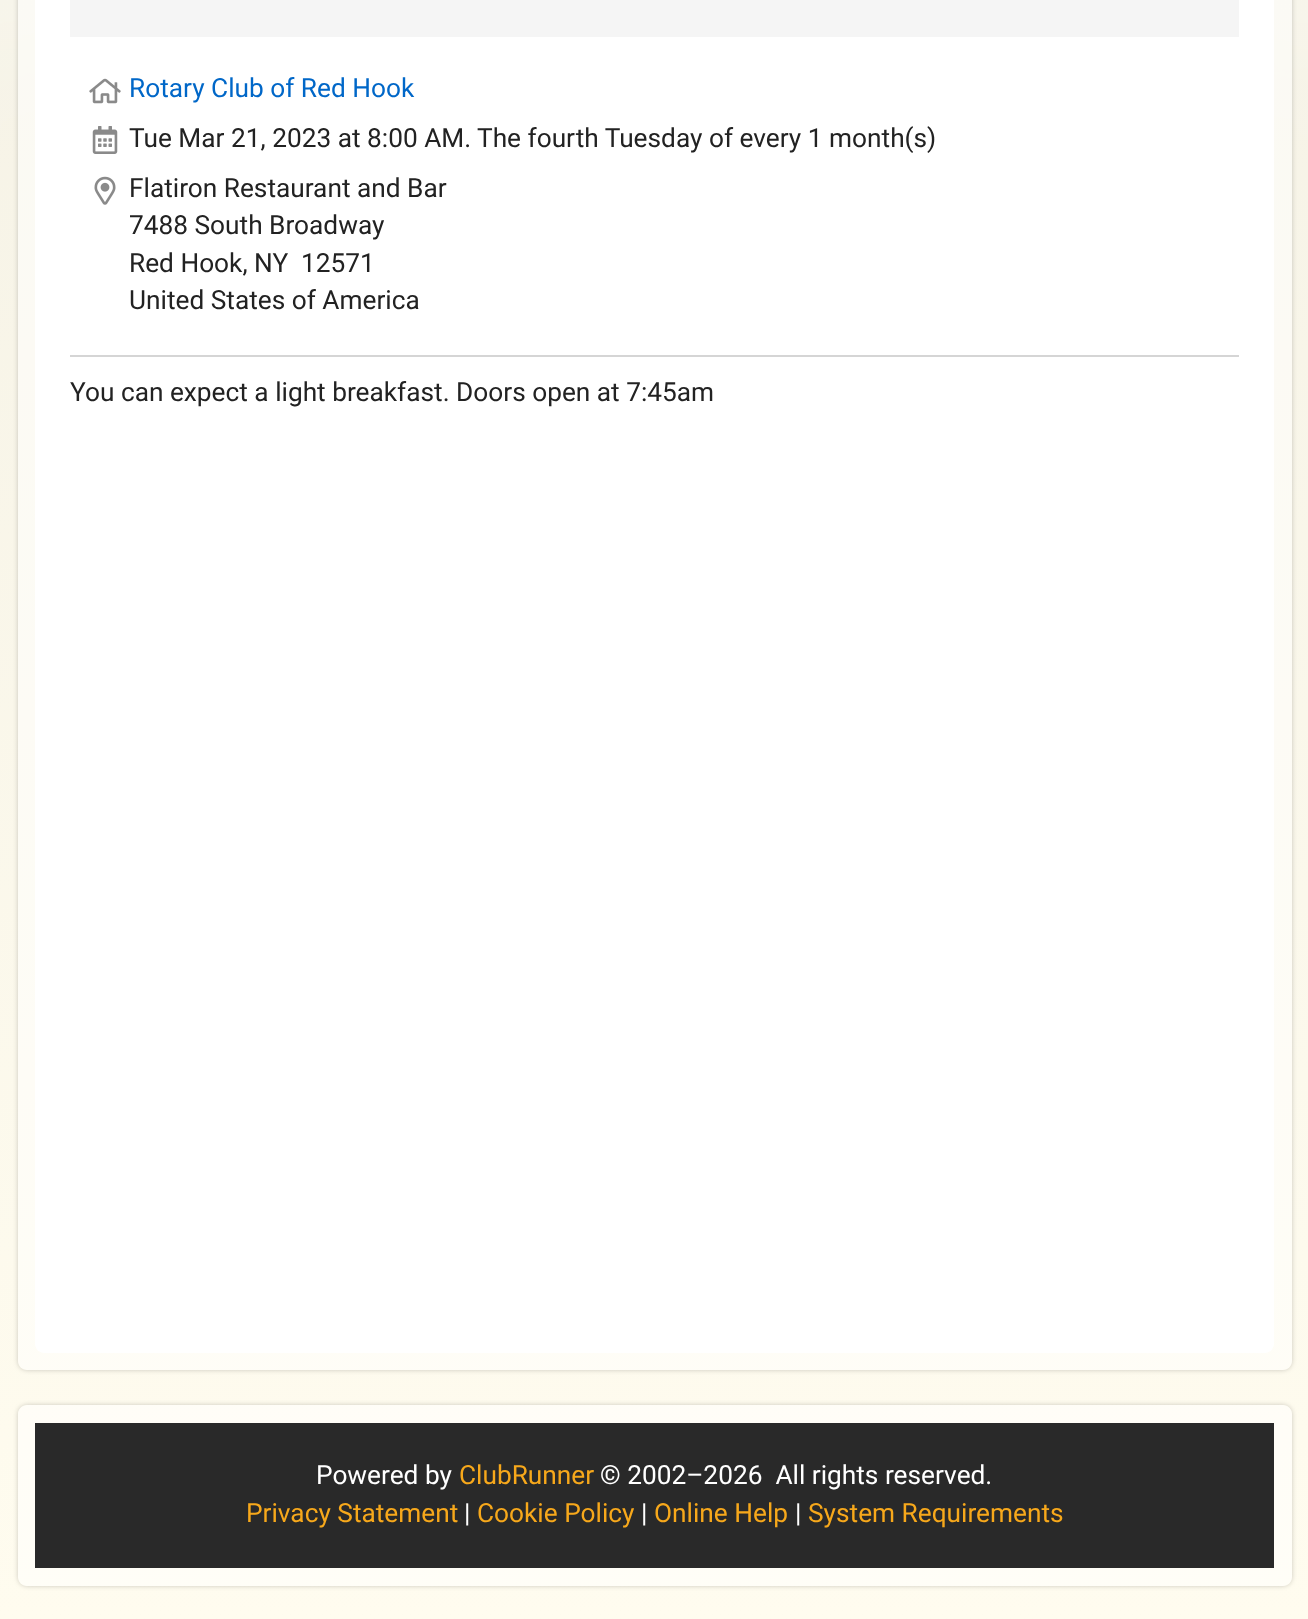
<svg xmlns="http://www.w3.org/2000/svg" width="1308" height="1619">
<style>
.a{font:26.25px Roboto;fill:#0067c8}
.b{font:26.25px Roboto;fill:#222}
.c{font:26.25px Roboto;fill:#fff}
.d{font:26.25px Roboto;fill:#f7a81b}
</style>
<defs>
<clipPath id="clip1"><path d="M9 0h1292v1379h-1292zm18-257h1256c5 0 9 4 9 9v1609c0 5-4 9-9 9h-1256c-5 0-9-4-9-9v-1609c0-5 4-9 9-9z" clip-rule="evenodd"/></clipPath>
<clipPath id="clip2"><path d="M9 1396h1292v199h-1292zm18 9h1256c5 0 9 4 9 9v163c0 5-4 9-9 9h-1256c-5 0-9-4-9-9v-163c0-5 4-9 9-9z" clip-rule="evenodd"/></clipPath>
</defs>
<rect width="100%" height="100%" fill="#fff"/>
<image href="1.png" x="0" y="0" width="1308" height="1619"/>
<g clip-path="url(#clip1)">
<rect fill="#00000033" filter="blur(2.5px)" x="18" y="-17" width="1274" height="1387" rx="9"/>
</g>
<rect fill="#ffffff80" x="18" y="-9" width="1274" height="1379" rx="9"/>
<rect fill="#fff" x="35" y="-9" width="1239" height="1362" rx="9"/>
<path fill="#d5d5d5" d="M70 355h1169v2H70z"/>
<path fill="#f5f5f5" d="M70 0h1169v37H70z"/>
<image href="2.png" x="89" y="78" width="32" height="26"/>
<image href="3.png" x="92" y="126" width="26" height="28"/>
<image href="4.png" x="94" y="176" width="22" height="29"/>
<g clip-path="url(#clip2)">
<rect fill="#00000033" filter="blur(2.5px)" x="18" y="1405" width="1274" height="181" rx="9"/>
</g>
<rect fill="#ffffff80" x="18" y="1405" width="1274" height="181" rx="9"/>
<path fill="#292929" d="M35 1423h1239v145H35z"/>
<text class="a" x="129" y="97">Rotary Club of Red Hook</text>
<text class="b" x="129" y="147">Tue Mar 21, 2023 at 8:00 AM.</text>
<text class="b" x="477" y="147">The fourth Tuesday of every 1 month(s)</text>
<text class="b" x="129" y="197">Flatiron Restaurant and Bar</text>
<text class="b" x="129" y="234">7488 South Broadway</text>
<text class="b" x="129" y="272">Red Hook, NY</text>
<text class="b" x="301" y="272">12571</text>
<text class="b" x="129" y="309">United States of America</text>
<text class="b" x="70" y="401">You can expect a light breakfast. Doors open at 7:45am</text>
<text class="c" x="316" y="1484">Powered by</text>
<text class="d" x="459" y="1484">ClubRunner</text>
<text class="c" xml:space="preserve" x="600" y="1484">© 2002–2026  All rights reserved.</text>
<text class="d" x="246" y="1522">Privacy Statement</text>
<text class="c" x="464" y="1522">|</text>
<text class="d" x="477" y="1522">Cookie Policy</text>
<text class="c" x="641" y="1522">|</text>
<text class="d" x="654" y="1522">Online Help</text>
<text class="c" x="795" y="1522">|</text>
<text class="d" x="808" y="1522">System Requirements</text>
</svg>
